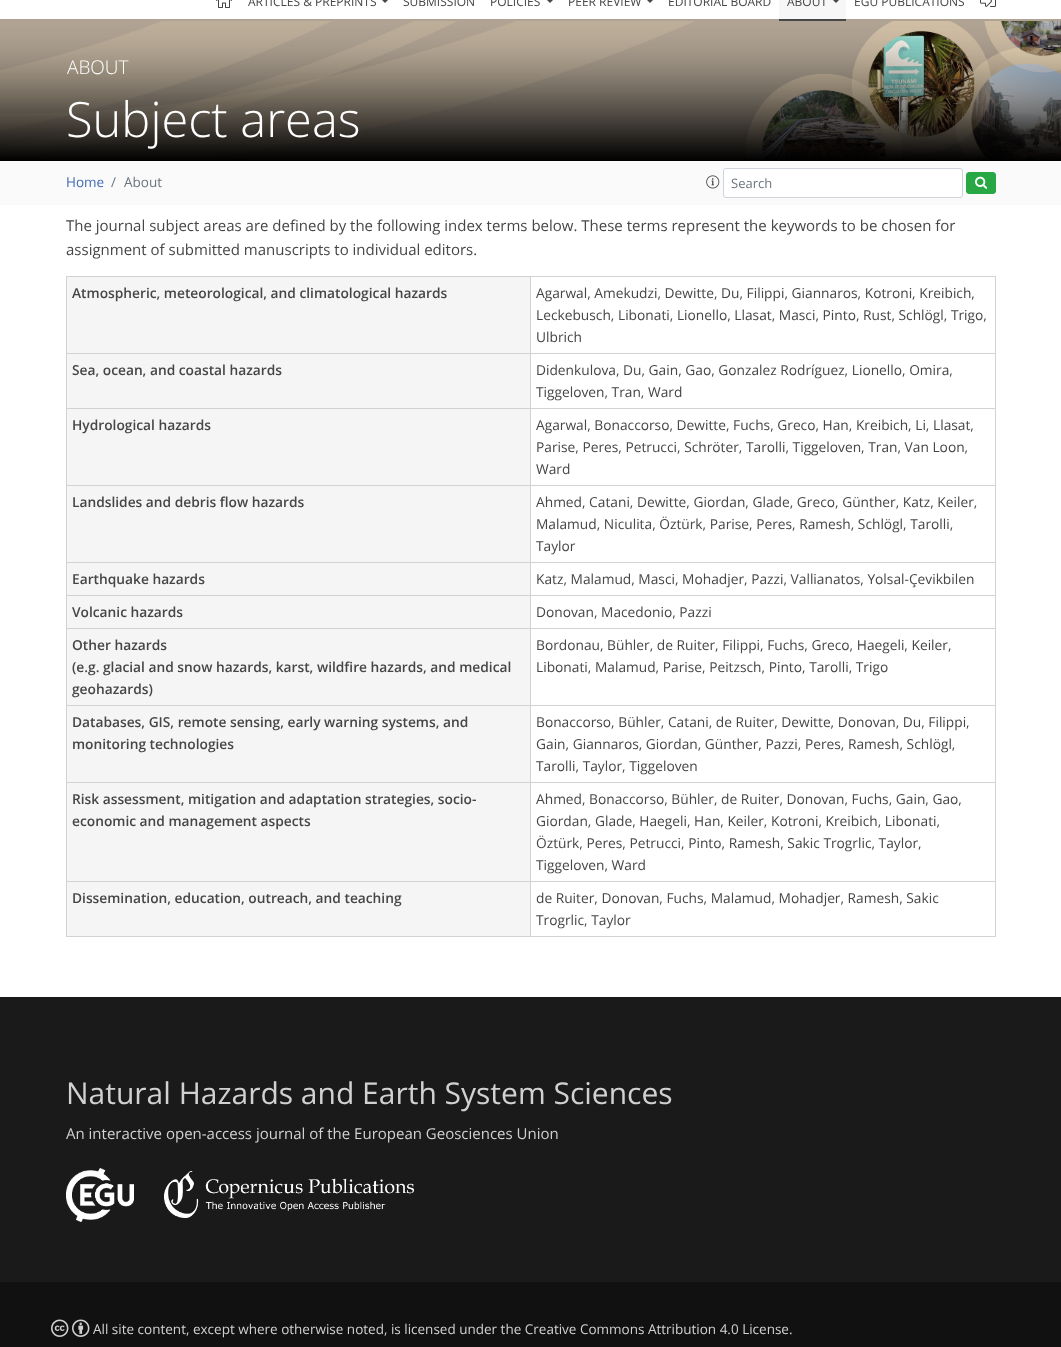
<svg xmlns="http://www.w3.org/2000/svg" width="1061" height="1347">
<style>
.a{font:12px Open Sans;fill:#464646}
.b{font:300 19px Open Sans;fill:#fff}
.c{font:300 48.75px Open Sans;fill:#fff}
.d{font:13.5px Open Sans;fill:#416bb4}
.e{font:13.5px Open Sans;fill:#6c757d}
.f{font:13px Open Sans;fill:#6c757d}
.g{font:15px Open Sans;fill:#464646}
.h{font:600 13.75px Open Sans;fill:#464646}
.i{font:13.75px Open Sans;fill:#464646}
.j{font:30px Open Sans;fill:#d1d1d1}
.k{font:15px Open Sans;fill:#d1d1d1}
.l{font:13.5px Open Sans;fill:#d1d1d1}
</style>
<rect width="100%" height="100%" fill="#fff"/>
<path fill="#b0a393" d="M0 19h1061v2H0z"/>
<image href="1.png" x="216" y="0" width="16" height="8"/>
<path fill="#464646" d="M382 0h6l-3 3z"/>
<path fill="#464646" d="M547 0h6l-3 3z"/>
<path fill="#464646" d="M647 0h6l-3 3z"/>
<path fill="#f7f7f7" d="M779 0h67v19H779z"/>
<path fill="#464646" d="M779 19h67v2H779z"/>
<path fill="#464646" d="M833 0h6l-3 3z"/>
<image href="2.png" x="980" y="0" width="16" height="7"/>
<image href="3.png" x="0" y="21" width="1061" height="140"/>
<path fill="#fafafa" d="M0 161h1061v44H0z"/>
<image href="4.png" x="706" y="175" width="14" height="14"/>
<rect fill="#fff" stroke="#ced4da" x="723.5" y="168.5" width="239" height="29" rx="2.5"/>
<rect fill="#28a745" stroke="#28a745" x="966.5" y="172.5" width="29" height="21" rx="2.5"/>
<image href="5.png" x="975" y="176" width="13" height="13"/>
<path fill="#f5f5f5" d="M67 277h463v76H67z"/>
<path fill="#d2d2d2" d="M530 276h466v1H530z"/>
<path fill="#d2d2d2" d="M530 353h466v1H530z"/>
<path fill="#d2d2d2" d="M530 408h466v1H530z"/>
<path fill="#d2d2d2" d="M530 485h466v1H530z"/>
<path fill="#d2d2d2" d="M530 562h466v1H530z"/>
<path fill="#d2d2d2" d="M530 595h466v1H530z"/>
<path fill="#d2d2d2" d="M530 628h466v1H530z"/>
<path fill="#d2d2d2" d="M530 705h466v1H530z"/>
<path fill="#d2d2d2" d="M530 782h466v1H530z"/>
<path fill="#d2d2d2" d="M530 881h466v1H530z"/>
<path fill="#d2d2d2" d="M995 881h1v56H995z"/>
<path fill="#d2d2d2" d="M530 936h466v1H530z"/>
<path fill="#d2d2d2" d="M530 881h1v56H530z"/>
<path fill="#d2d2d2" d="M66 881h465v1H66z"/>
<path fill="#d2d2d2" d="M530 782h1v100H530z"/>
<path fill="#d2d2d2" d="M66 782h465v1H66z"/>
<path fill="#d2d2d2" d="M530 705h1v78H530z"/>
<path fill="#d2d2d2" d="M66 705h465v1H66z"/>
<path fill="#d2d2d2" d="M530 628h1v78H530z"/>
<path fill="#d2d2d2" d="M66 628h465v1H66z"/>
<path fill="#d2d2d2" d="M530 595h1v34H530z"/>
<path fill="#d2d2d2" d="M66 595h465v1H66z"/>
<path fill="#d2d2d2" d="M530 562h1v34H530z"/>
<path fill="#d2d2d2" d="M66 562h465v1H66z"/>
<path fill="#d2d2d2" d="M530 485h1v78H530z"/>
<path fill="#d2d2d2" d="M66 485h465v1H66z"/>
<path fill="#d2d2d2" d="M530 408h1v78H530z"/>
<path fill="#d2d2d2" d="M66 408h465v1H66z"/>
<path fill="#d2d2d2" d="M530 353h1v56H530z"/>
<path fill="#d2d2d2" d="M66 353h465v1H66z"/>
<path fill="#d2d2d2" d="M530 276h1v78H530z"/>
<path fill="#d2d2d2" d="M66 276h465v1H66z"/>
<path fill="#d2d2d2" d="M66 936h465v1H66z"/>
<path fill="#d2d2d2" d="M66 881h1v56H66z"/>
<path fill="#d2d2d2" d="M66 782h1v100H66z"/>
<path fill="#d2d2d2" d="M66 705h1v78H66z"/>
<path fill="#d2d2d2" d="M66 628h1v78H66z"/>
<path fill="#d2d2d2" d="M66 595h1v34H66z"/>
<path fill="#d2d2d2" d="M66 562h1v34H66z"/>
<path fill="#d2d2d2" d="M66 485h1v78H66z"/>
<path fill="#d2d2d2" d="M66 408h1v78H66z"/>
<path fill="#d2d2d2" d="M66 353h1v56H66z"/>
<path fill="#d2d2d2" d="M66 276h1v78H66z"/>
<path fill="#d2d2d2" d="M995 782h1v100H995z"/>
<path fill="#d2d2d2" d="M995 705h1v78H995z"/>
<path fill="#d2d2d2" d="M995 628h1v78H995z"/>
<path fill="#d2d2d2" d="M995 595h1v34H995z"/>
<path fill="#d2d2d2" d="M995 562h1v34H995z"/>
<path fill="#d2d2d2" d="M995 485h1v78H995z"/>
<path fill="#d2d2d2" d="M995 408h1v78H995z"/>
<path fill="#d2d2d2" d="M995 353h1v56H995z"/>
<path fill="#d2d2d2" d="M995 276h1v78H995z"/>
<path fill="#f5f5f5" d="M67 354h463v54H67z"/>
<path fill="#f5f5f5" d="M67 409h463v76H67z"/>
<path fill="#f5f5f5" d="M67 486h463v76H67z"/>
<path fill="#f5f5f5" d="M67 563h463v32H67z"/>
<path fill="#f5f5f5" d="M67 596h463v32H67z"/>
<path fill="#f5f5f5" d="M67 629h463v76H67z"/>
<path fill="#f5f5f5" d="M67 706h463v76H67z"/>
<path fill="#f5f5f5" d="M67 783h463v98H67z"/>
<path fill="#f5f5f5" d="M67 882h463v54H67z"/>
<path fill="#1a1a1a" d="M0 997h1061v285H0z"/>
<image href="6.png" x="66" y="1168" width="68" height="54"/>
<image href="7.png" x="164" y="1171" width="250" height="47"/>
<path fill="#111" d="M0 1282h1061v65H0z"/>
<image href="8.png" x="51" y="1319" width="18" height="18"/>
<image href="9.png" x="72" y="1319" width="18" height="18"/>
<text class="a" x="248" y="6">ARTICLES &amp; PREPRINTS</text>
<text class="a" x="403" y="6">SUBMISSION</text>
<text class="a" x="490" y="6">POLICIES</text>
<text class="a" x="568" y="6">PEER REVIEW</text>
<text class="a" x="668" y="6">EDITORIAL BOARD</text>
<text class="a" x="787" y="6">ABOUT</text>
<text class="a" x="854" y="6">EGU PUBLICATIONS</text>
<text class="b" x="67" y="74">ABOUT</text>
<text class="c" x="66" y="137">Subject areas</text>
<text class="d" x="66" y="187">Home</text>
<text class="e" x="111" y="187">/</text>
<text class="e" x="124" y="187">About</text>
<text class="f" x="731" y="188">Search</text>
<text class="g" x="66" y="231">The journal subject areas are defined by the following index terms below. These terms represent the keywords to be chosen for</text>
<text class="g" x="66" y="255">assignment of submitted manuscripts to individual editors.</text>
<text class="h" x="72" y="298">Atmospheric, meteorological, and climatological hazards</text>
<text class="i" x="536" y="298">Agarwal, Amekudzi, Dewitte, Du, Filippi, Giannaros, Kotroni, Kreibich,</text>
<text class="i" x="536" y="320">Leckebusch, Libonati, Lionello, Llasat, Masci, Pinto, Rust, Schlögl, Trigo,</text>
<text class="i" x="536" y="342">Ulbrich</text>
<text class="h" x="72" y="375">Sea, ocean, and coastal hazards</text>
<text class="i" x="536" y="375">Didenkulova, Du, Gain, Gao, Gonzalez Rodríguez, Lionello, Omira,</text>
<text class="i" x="536" y="397">Tiggeloven, Tran, Ward</text>
<text class="h" x="72" y="430">Hydrological hazards</text>
<text class="i" x="536" y="430">Agarwal, Bonaccorso, Dewitte, Fuchs, Greco, Han, Kreibich, Li, Llasat,</text>
<text class="i" x="536" y="452">Parise, Peres, Petrucci, Schröter, Tarolli, Tiggeloven, Tran, Van Loon,</text>
<text class="i" x="536" y="474">Ward</text>
<text class="h" x="72" y="507">Landslides and debris flow hazards</text>
<text class="i" x="536" y="507">Ahmed, Catani, Dewitte, Giordan, Glade, Greco, Günther, Katz, Keiler,</text>
<text class="i" x="536" y="529">Malamud, Niculita, Öztürk, Parise, Peres, Ramesh, Schlögl, Tarolli,</text>
<text class="i" x="536" y="551">Taylor</text>
<text class="h" x="72" y="584">Earthquake hazards</text>
<text class="i" x="536" y="584">Katz, Malamud, Masci, Mohadjer, Pazzi, Vallianatos, Yolsal-Çevikbilen</text>
<text class="h" x="72" y="617">Volcanic hazards</text>
<text class="i" x="536" y="617">Donovan, Macedonio, Pazzi</text>
<text class="h" x="72" y="650">Other hazards</text>
<text class="h" x="72" y="672">(e.g. glacial and snow hazards, karst, wildfire hazards, and medical</text>
<text class="h" x="72" y="694">geohazards)</text>
<text class="i" x="536" y="650">Bordonau, Bühler, de Ruiter, Filippi, Fuchs, Greco, Haegeli, Keiler,</text>
<text class="i" x="536" y="672">Libonati, Malamud, Parise, Peitzsch, Pinto, Tarolli, Trigo</text>
<text class="h" x="72" y="727">Databases, GIS, remote sensing, early warning systems, and</text>
<text class="h" x="72" y="749">monitoring technologies</text>
<text class="i" x="536" y="727">Bonaccorso, Bühler, Catani, de Ruiter, Dewitte, Donovan, Du, Filippi,</text>
<text class="i" x="536" y="749">Gain, Giannaros, Giordan, Günther, Pazzi, Peres, Ramesh, Schlögl,</text>
<text class="i" x="536" y="771">Tarolli, Taylor, Tiggeloven</text>
<text class="h" x="72" y="804">Risk assessment, mitigation and adaptation strategies, socio-</text>
<text class="h" x="72" y="826">economic and management aspects</text>
<text class="i" x="536" y="804">Ahmed, Bonaccorso, Bühler, de Ruiter, Donovan, Fuchs, Gain, Gao,</text>
<text class="i" x="536" y="826">Giordan, Glade, Haegeli, Han, Keiler, Kotroni, Kreibich, Libonati,</text>
<text class="i" x="536" y="848">Öztürk, Peres, Petrucci, Pinto, Ramesh, Sakic Trogrlic, Taylor,</text>
<text class="i" x="536" y="870">Tiggeloven, Ward</text>
<text class="h" x="72" y="903">Dissemination, education, outreach, and teaching</text>
<text class="i" x="536" y="903">de Ruiter, Donovan, Fuchs, Malamud, Mohadjer, Ramesh, Sakic</text>
<text class="i" x="536" y="925">Trogrlic, Taylor</text>
<text class="j" x="66" y="1104">Natural Hazards and Earth System Sciences</text>
<text class="k" x="66" y="1139">An interactive open-access journal of the European Geosciences Union</text>
<text class="l" x="93" y="1334">All site content, except where otherwise noted, is licensed under the Creative Commons Attribution 4.0 License.</text>
</svg>
